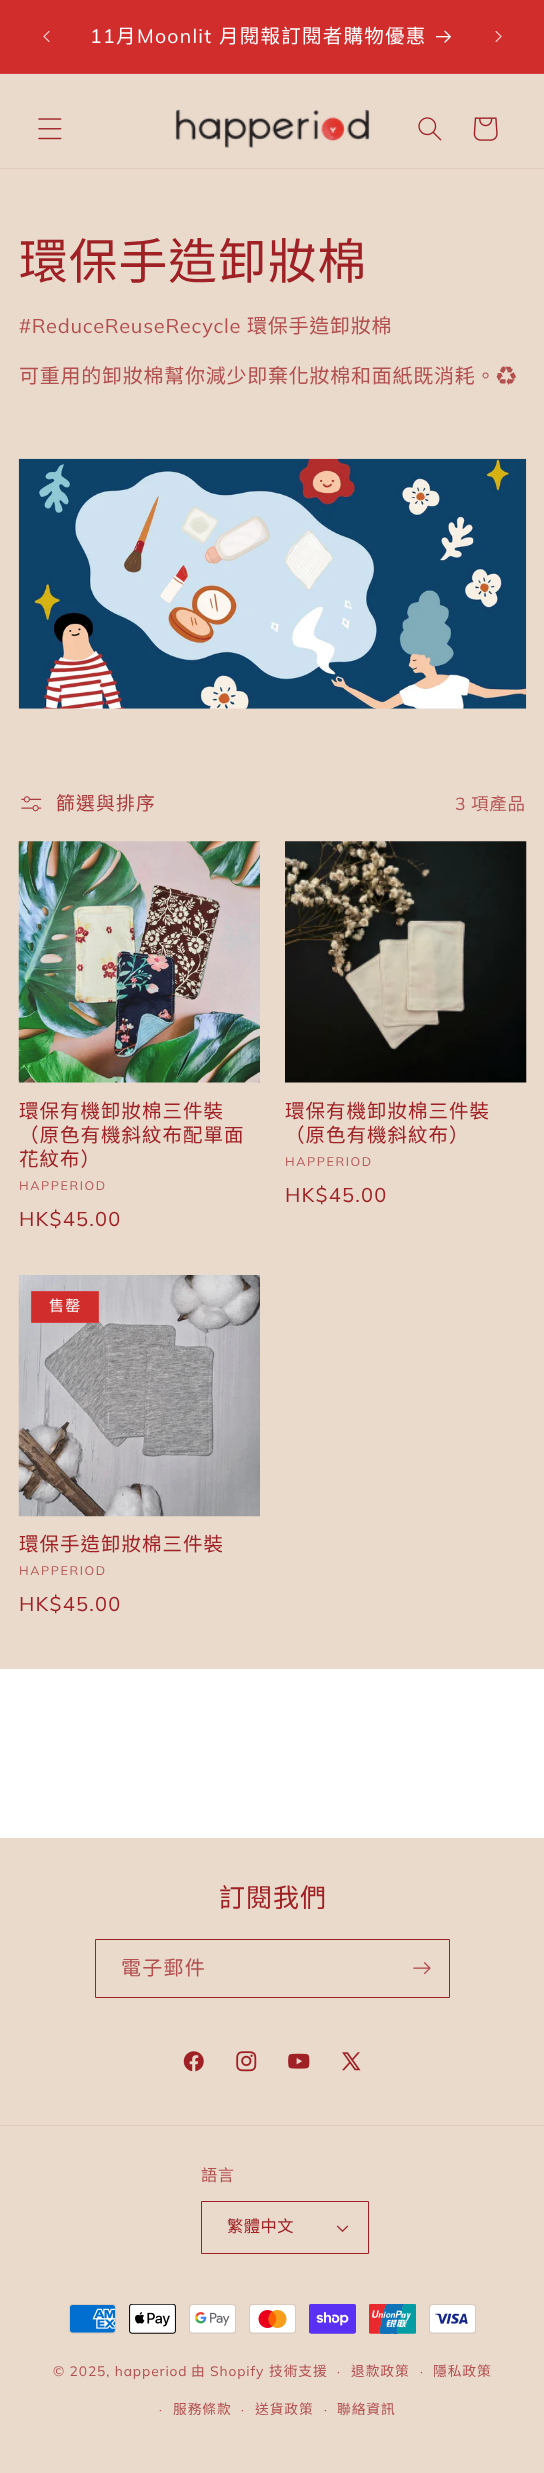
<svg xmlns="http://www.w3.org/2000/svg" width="544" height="2473">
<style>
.a{font:19.5px Muli;letter-spacing:1.25px;fill:#fff}
.b{font:19.5px Noto Sans CJK TC;letter-spacing:1.25px;fill:#fff}
.c{font:48.75px Noto Sans CJK TC;letter-spacing:1px;fill:#9f2025}
.d{font:20px Muli;letter-spacing:0.75px;fill:#b24f4f}
.e{font:20px Noto Sans CJK TC;letter-spacing:0.75px;fill:#b24f4f}
.f{font:18.75px Noto Sans CJK TC;letter-spacing:1.25px;fill:#aa3c3e}
.g{font:17.5px Muli;letter-spacing:0.75px;fill:#b65857}
.h{font:17.5px Noto Sans CJK TC;letter-spacing:0.75px;fill:#b65857}
.i{font:19.5px Noto Sans CJK TC;letter-spacing:1px;fill:#9f2025}
.j{font:12.5px Muli;letter-spacing:1.6px;fill:#b65857}
.k{font:20px Muli;letter-spacing:1.25px;fill:#9f2025}
.l{font:15px Noto Sans CJK TC;letter-spacing:1.25px;fill:#fff}
.m{font:26px Noto Sans CJK TC;letter-spacing:1px;fill:#9f2025}
.n{font:20px Noto Sans CJK TC;letter-spacing:1.25px;fill:#b24f4f}
.o{font:16.25px Noto Sans CJK TC;letter-spacing:0.5px;fill:#b24f4f}
.p{font:16.25px Noto Sans CJK TC;letter-spacing:0.5px;fill:#9f2025}
.q{font:12.5px Muli;letter-spacing:0.9px;fill:#b24f4f}
.r{font:13.75px Noto Sans CJK TC;letter-spacing:0.9px;fill:#b24f4f}
.s{font:13.75px Muli;letter-spacing:0.9px;fill:#b24f4f}
</style>
<rect width="100%" height="100%" fill="#fff"/>
<path fill="#d12d2d" d="M0 0h544v73H0z"/>
<path fill="#d53e3e" d="M0 73h544v1H0z"/>
<image href="1.png" x="43" y="31" width="7" height="11"/>
<image href="2.png" x="436" y="30" width="15" height="13"/>
<image href="3.png" x="495" y="31" width="7" height="11"/>
<path fill="#eadacc" d="M0 74h544v94H0z"/>
<path fill="#e4cbbf" d="M0 168h544v1H0z"/>
<image href="4.png" x="38" y="118" width="24" height="22"/>
<image href="5.png" x="175" y="109" width="195" height="39"/>
<image href="6.png" x="418" y="117" width="24" height="24"/>
<image href="7.png" x="473" y="117" width="25" height="24"/>
<path fill="#eadacc" d="M0 169h544v1500H0z"/>
<image href="8.png" x="18" y="458" width="509" height="251"/>
<image href="9.png" x="21" y="796" width="21" height="16"/>
<image href="10.png" x="18" y="841" width="242" height="242"/>
<image href="11.png" x="285" y="841" width="242" height="242"/>
<image href="12.png" x="18" y="1275" width="242" height="242"/>
<path fill="#d12d2d" stroke="#d64242" d="M31.5 1291.5h67v31H31.5z"/>
<path fill="#eadacc" d="M0 1838h544v635H0z"/>
<path fill="none" stroke="#9f2025" d="M95.5 1939.5h354v58H95.5z"/>
<image href="13.png" x="413" y="1962" width="18" height="13"/>
<image href="14.png" x="183" y="2051" width="21" height="21"/>
<image href="15.png" x="236" y="2051" width="21" height="21"/>
<image href="16.png" x="288" y="2053" width="22" height="16"/>
<image href="17.png" x="342" y="2052" width="19" height="19"/>
<path fill="#e4cbbf" d="M0 2125h544v1H0z"/>
<image href="18.png" x="336" y="2225" width="13" height="7"/>
<path fill="none" stroke="#9f2025" d="M201.5 2201.5h167v52H201.5z"/>
<image href="19.png" x="69" y="2304" width="47" height="30"/>
<image href="20.png" x="129" y="2304" width="47" height="30"/>
<image href="21.png" x="189" y="2304" width="47" height="30"/>
<image href="22.png" x="249" y="2304" width="47" height="30"/>
<image href="23.png" x="309" y="2304" width="47" height="30"/>
<image href="24.png" x="369" y="2304" width="47" height="30"/>
<image href="25.png" x="429" y="2304" width="47" height="30"/>
<text class="a" x="90" y="43">11</text>
<text class="b" x="116" y="43">月</text>
<text class="a" x="137" y="43">Moonlit</text>
<text class="b" x="219" y="43">月閱報訂閱者購物優惠</text>
<text class="c" x="19" y="279">環保手造卸妝棉</text>
<text class="d" x="19" y="333">#ReduceReuseRecycle</text>
<text class="e" x="247" y="333">環保手造卸妝棉</text>
<text class="e" x="19" y="383">可重用的卸妝棉幫你減少即棄化妝棉和面紙既消耗。♻</text>
<text class="f" x="56" y="810">篩選與排序</text>
<text class="g" x="455" y="810">3</text>
<text class="h" x="471" y="810">項產品</text>
<text class="i" x="19" y="1118">環保有機卸妝棉三件裝</text>
<text class="i" x="19" y="1142">（原色有機斜紋布配單面</text>
<text class="i" x="19" y="1166">花紋布）</text>
<text class="j" x="19" y="1190">HAPPERIOD</text>
<text class="k" x="19" y="1226">HK$45.00</text>
<text class="i" x="285" y="1118">環保有機卸妝棉三件裝</text>
<text class="i" x="285" y="1142">（原色有機斜紋布）</text>
<text class="j" x="285" y="1166">HAPPERIOD</text>
<text class="k" x="285" y="1202">HK$45.00</text>
<text class="l" x="49" y="1311">售罄</text>
<text class="i" x="19" y="1551">環保手造卸妝棉三件裝</text>
<text class="j" x="19" y="1575">HAPPERIOD</text>
<text class="k" x="19" y="1611">HK$45.00</text>
<text class="m" x="219" y="1907">訂閱我們</text>
<text class="n" x="121" y="1975">電子郵件</text>
<text class="o" x="201" y="2181">語言</text>
<text class="p" x="227" y="2232">繁體中文</text>
<text class="q" x="337" y="2376">·</text>
<text class="r" x="351" y="2376">退款政策</text>
<text class="q" x="420" y="2376">·</text>
<text class="r" x="433" y="2376">隱私政策</text>
<text class="q" x="159" y="2414">·</text>
<text class="r" x="173" y="2414">服務條款</text>
<text class="q" x="241" y="2414">·</text>
<text class="r" x="255" y="2414">送貨政策</text>
<text class="q" x="324" y="2414">·</text>
<text class="r" x="337" y="2414">聯絡資訊</text>
<text class="s" x="53" y="2376">© 2025, happeriod</text>
<text class="r" x="191" y="2376">由</text>
<text class="s" x="210" y="2376">Shopify</text>
<text class="r" x="269" y="2376">技術支援</text>
</svg>
